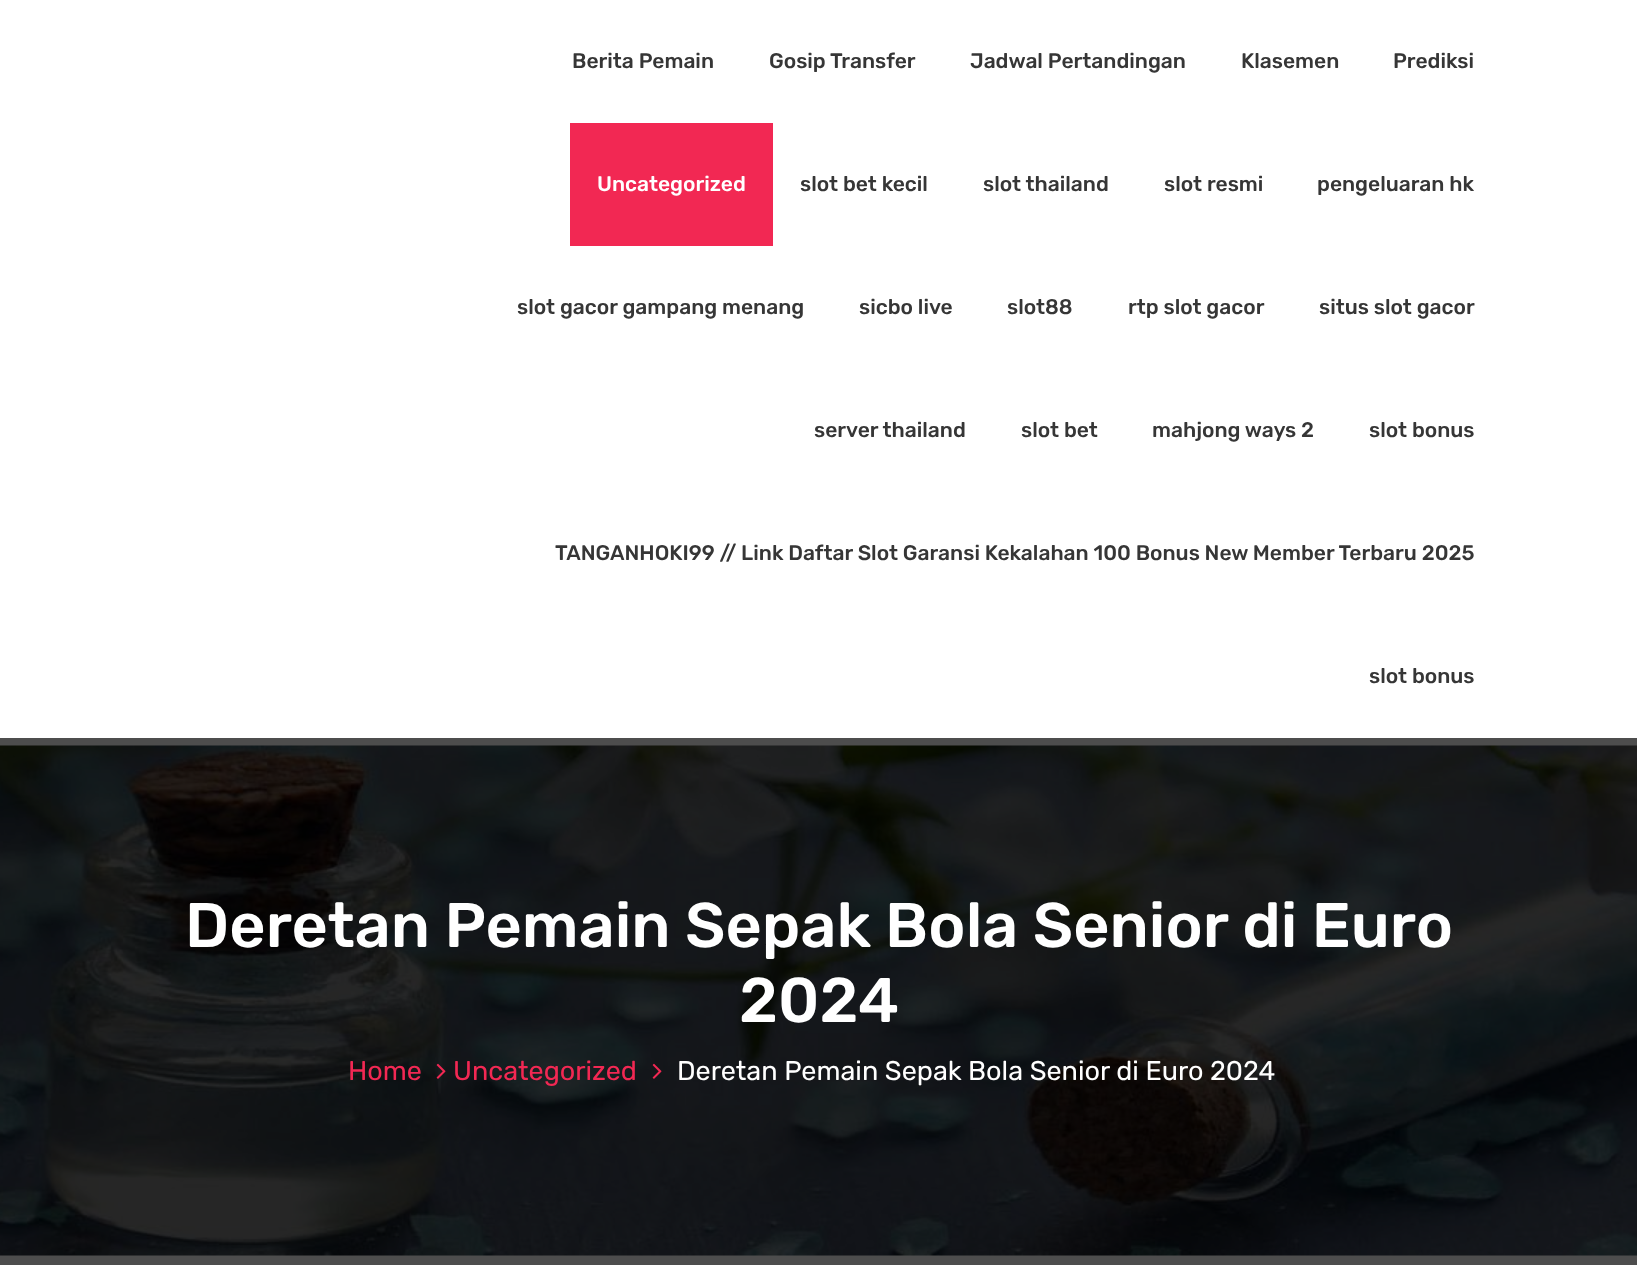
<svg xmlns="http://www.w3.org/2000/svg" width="1637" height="1271">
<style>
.a{font:500 21px Rubik;fill:#363636}
.b{font:500 21px Rubik;fill:#fff}
.c{font:500 63px Rubik;fill:#fff}
.d{font:27px Rubik;fill:#f22853}
.e{font:27px Rubik;fill:#fff}
</style>
<rect width="100%" height="100%" fill="#fff"/>
<path fill="#4d4d4d" d="M0 738h1637v527H0z"/>
<path fill="#f22853" d="M570 123h203v123H570z"/>
<image href="1.png" x="0" y="745" width="1637" height="511"/>
<image href="2.png" x="436" y="1063" width="10" height="16"/>
<image href="3.png" x="652" y="1063" width="10" height="16"/>
<text class="a" x="572" y="68">Berita Pemain</text>
<text class="a" x="769" y="68">Gosip Transfer</text>
<text class="a" x="970" y="68">Jadwal Pertandingan</text>
<text class="a" x="1241" y="68">Klasemen</text>
<text class="a" x="1393" y="68">Prediksi</text>
<text class="b" x="597" y="191">Uncategorized</text>
<text class="a" x="800" y="191">slot bet kecil</text>
<text class="a" x="983" y="191">slot thailand</text>
<text class="a" x="1164" y="191">slot resmi</text>
<text class="a" x="1317" y="191">pengeluaran hk</text>
<text class="a" x="517" y="314">slot gacor gampang menang</text>
<text class="a" x="859" y="314">sicbo live</text>
<text class="a" x="1007" y="314">slot88</text>
<text class="a" x="1128" y="314">rtp slot gacor</text>
<text class="a" x="1319" y="314">situs slot gacor</text>
<text class="a" x="814" y="437">server thailand</text>
<text class="a" x="1021" y="437">slot bet</text>
<text class="a" x="1152" y="437">mahjong ways 2</text>
<text class="a" x="1369" y="437">slot bonus</text>
<text class="a" x="555" y="560">TANGANHOKI99 // Link Daftar Slot Garansi Kekalahan 100 Bonus New Member Terbaru 2025</text>
<text class="a" x="1369" y="683">slot bonus</text>
<text class="c" x="185" y="947">Deretan Pemain Sepak Bola Senior di Euro</text>
<text class="c" x="739" y="1022">2024</text>
<text class="d" x="348" y="1080">Home</text>
<text class="d" x="453" y="1080">Uncategorized</text>
<text class="e" x="677" y="1080">Deretan Pemain Sepak Bola Senior di Euro 2024</text>
</svg>
